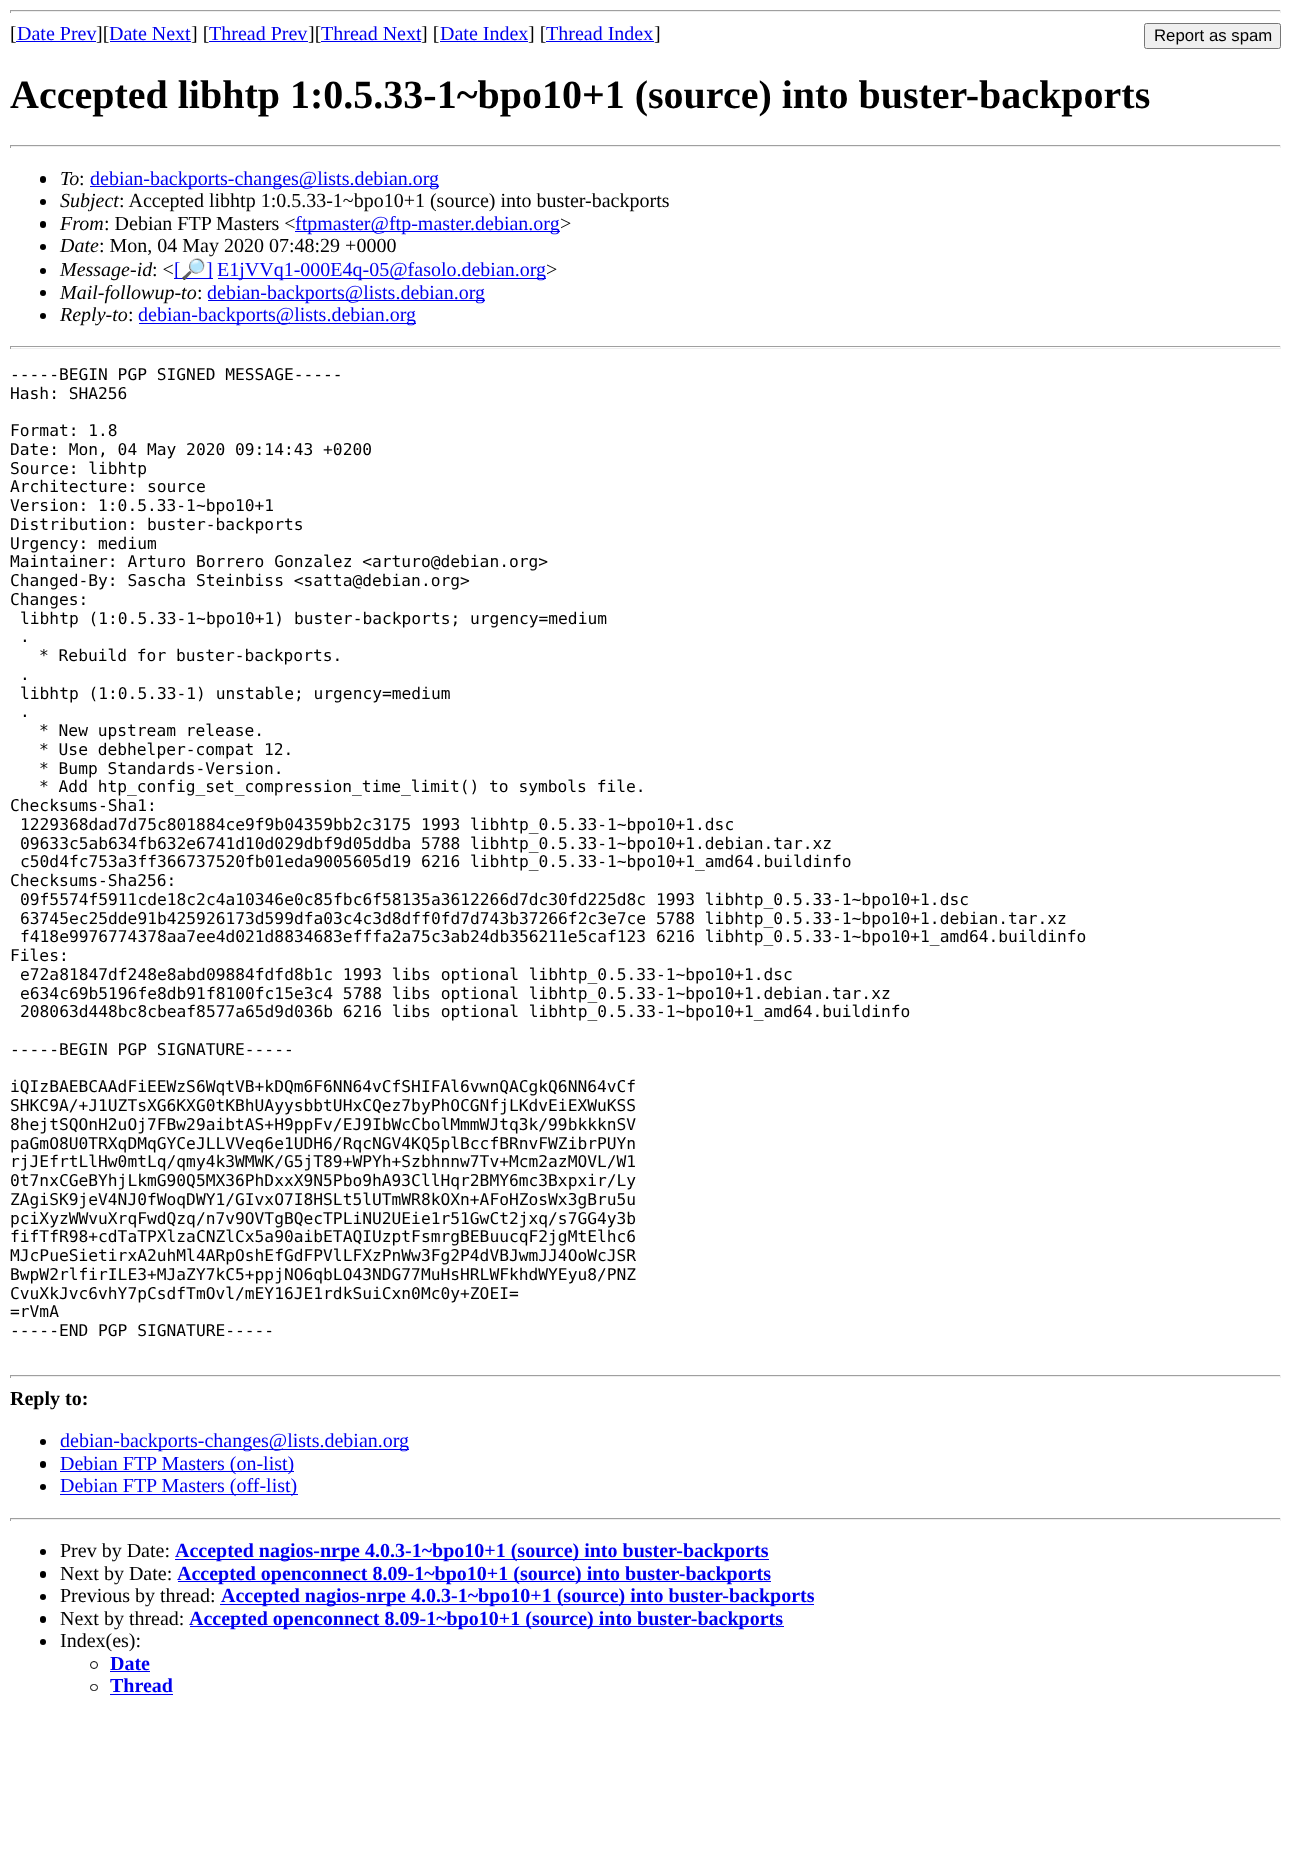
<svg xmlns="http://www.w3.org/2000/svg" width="1291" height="1866">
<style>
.a{font:20px Liberation Serif;fill:#000}
.b{font:20px Liberation Serif;fill:#00e}
.c{font:16.75px Liberation Sans;fill:#000}
.d{font:bold 40px Liberation Serif;fill:#000}
.e{font:italic 20px Liberation Serif;fill:#000}
.f{font:20px Noto Color Emoji;fill:#00e}
.g{font:16.25px DejaVu Sans Mono;fill:#000}
.h{font:bold 20px Liberation Serif;fill:#000}
.i{font:bold 20px Liberation Serif;fill:#00e}
</style>
<rect width="100%" height="100%" fill="#fff"/>
<path fill="#9f9f9f" d="M10 10h1271v1H10z"/>
<path fill="#eee" d="M1280 10h1v3H1280z"/>
<path fill="#eee" d="M10 11h1271v1H10z"/>
<path fill="#9f9f9f" d="M10 10h1v3H10z"/>
<path fill="#00e" d="M16 41h80v1H16z"/>
<path fill="#00e" d="M110 41h81v1H110z"/>
<path fill="#00e" d="M209 41h99v1H209z"/>
<path fill="#00e" d="M321 41h100v1H321z"/>
<path fill="#00e" d="M440 41h88v1H440z"/>
<path fill="#00e" d="M546 41h108v1H546z"/>
<rect fill="#efefef" stroke="#767676" x="1144.5" y="23.5" width="136" height="25" rx="2"/>
<path fill="#9f9f9f" d="M10 145h1271v1H10z"/>
<path fill="#eee" d="M1280 145h1v3H1280z"/>
<path fill="#eee" d="M10 146h1271v1H10z"/>
<path fill="#9f9f9f" d="M10 145h1v3H10z"/>
<rect fill="#000" x="40" y="176" width="6" height="7" rx="3"/>
<path fill="#00e" d="M90 186h349v1H90z"/>
<circle fill="#000" cx="43" cy="202" r="3"/>
<rect fill="#000" x="40" y="221" width="6" height="7" rx="3"/>
<path fill="#00e" d="M295 231h265v1H295z"/>
<circle fill="#000" cx="43" cy="247" r="3"/>
<circle fill="#000" cx="43" cy="271" r="3"/>
<path fill="#00e" d="M174 278h39v1H174z"/>
<path fill="#00e" d="M218 278h328v1H218z"/>
<circle fill="#000" cx="43" cy="293" r="3"/>
<path fill="#00e" d="M208 300h277v1H208z"/>
<circle fill="#000" cx="43" cy="316" r="3"/>
<path fill="#00e" d="M139 323h277v1H139z"/>
<path fill="#9f9f9f" d="M10 346h1271v1H10z"/>
<path fill="#eee" d="M1280 346h1v3H1280z"/>
<path fill="#eee" d="M10 348h1271v1H10z"/>
<path fill="#9f9f9f" d="M10 346h1v3H10z"/>
<path fill="#9f9f9f" d="M10 1375h1271v1H10z"/>
<path fill="#eee" d="M1280 1375h1v3H1280z"/>
<path fill="#eee" d="M10 1376h1271v1H10z"/>
<path fill="#9f9f9f" d="M10 1375h1v3H10z"/>
<circle fill="#000" cx="43" cy="1442" r="3"/>
<path fill="#00e" d="M60 1449h349v1H60z"/>
<rect fill="#000" x="40" y="1461" width="6" height="7" rx="3"/>
<path fill="#00e" d="M60 1471h234v1H60z"/>
<circle fill="#000" cx="43" cy="1487" r="3"/>
<path fill="#00e" d="M60 1494h238v1H60z"/>
<path fill="#9f9f9f" d="M10 1518h1271v1H10z"/>
<path fill="#eee" d="M1280 1518h1v3H1280z"/>
<path fill="#eee" d="M10 1519h1271v1H10z"/>
<path fill="#9f9f9f" d="M10 1518h1v3H10z"/>
<circle fill="#000" cx="43" cy="1552" r="3"/>
<path fill="#00e" d="M175 1559h594v1H175z"/>
<rect fill="#000" x="40" y="1571" width="6" height="7" rx="3"/>
<path fill="#00e" d="M178 1581h593v1H178z"/>
<circle fill="#000" cx="43" cy="1597" r="3"/>
<path fill="#00e" d="M220 1604h594v1H220z"/>
<rect fill="#000" x="40" y="1616" width="6" height="7" rx="3"/>
<path fill="#00e" d="M190 1626h594v1H190z"/>
<circle fill="#000" cx="43" cy="1642" r="3"/>
<circle fill="none" stroke="#000" cx="94" cy="1665" r="3.5"/>
<path fill="#00e" d="M110 1671h40v1H110z"/>
<rect fill="none" stroke="#000" x="90.5" y="1684.5" width="7" height="6" rx="3"/>
<path fill="#00e" d="M110 1694h63v1H110z"/>
<text class="a" x="10" y="40">[</text>
<text class="b" x="17" y="40">Date Prev</text>
<text class="a" x="96" y="40">][</text>
<text class="b" x="109" y="40">Date Next</text>
<text class="a" x="191" y="40">] [</text>
<text class="b" x="209" y="40">Thread Prev</text>
<text class="a" x="308" y="40">][</text>
<text class="b" x="321" y="40">Thread Next</text>
<text class="a" x="421" y="40">] [</text>
<text class="b" x="440" y="40">Date Index</text>
<text class="a" x="528" y="40">] [</text>
<text class="b" x="546" y="40">Thread Index</text>
<text class="a" x="654" y="40">]</text>
<text class="c" x="1154" y="41">Report as spam</text>
<text class="d" x="10" y="108">Accepted libhtp 1:0.5.33-1~bpo10+1 (source) into buster-backports</text>
<text class="e" x="60" y="185">To</text>
<text class="a" x="79" y="185">:</text>
<text class="b" x="90" y="185">debian-backports-changes@lists.debian.org</text>
<text class="e" x="60" y="207">Subject</text>
<text class="a" x="119" y="207">: Accepted libhtp 1:0.5.33-1~bpo10+1 (source) into buster-backports</text>
<text class="e" x="60" y="230">From</text>
<text class="a" x="104" y="230">: Debian FTP Masters &lt;</text>
<text class="b" x="295" y="230">ftpmaster@ftp-master.debian.org</text>
<text class="a" x="560" y="230">&gt;</text>
<text class="e" x="60" y="252">Date</text>
<text class="a" x="99" y="252">: Mon, 04 May 2020 07:48:29 +0000</text>
<text class="e" x="60" y="276">Message-id</text>
<text class="a" x="152" y="276">: &lt;</text>
<text class="b" x="174" y="276">[</text>
<text class="f" x="181" y="276">🔎</text>
<text class="b" x="206" y="276">]</text>
<text class="b" x="217" y="276">E1jVVq1-000E4q-05@fasolo.debian.org</text>
<text class="a" x="546" y="276">&gt;</text>
<text class="e" x="60" y="299">Mail-followup-to</text>
<text class="a" x="197" y="299">:</text>
<text class="b" x="207" y="299">debian-backports@lists.debian.org</text>
<text class="e" x="60" y="321">Reply-to</text>
<text class="a" x="128" y="321">:</text>
<text class="b" x="138" y="321">debian-backports@lists.debian.org</text>
<text class="g" x="10" y="380">-----BEGIN PGP SIGNED MESSAGE-----</text>
<text class="g" x="10" y="399">Hash: SHA256</text>
<text class="g" x="10" y="436">Format: 1.8</text>
<text class="g" x="10" y="455">Date: Mon, 04 May 2020 09:14:43 +0200</text>
<text class="g" x="10" y="474">Source: libhtp</text>
<text class="g" x="10" y="492">Architecture: source</text>
<text class="g" x="10" y="511">Version: 1:0.5.33-1~bpo10+1</text>
<text class="g" x="10" y="530">Distribution: buster-backports</text>
<text class="g" x="10" y="549">Urgency: medium</text>
<text class="g" x="10" y="567">Maintainer: Arturo Borrero Gonzalez &lt;arturo@debian.org&gt;</text>
<text class="g" x="10" y="586">Changed-By: Sascha Steinbiss &lt;satta@debian.org&gt;</text>
<text class="g" x="10" y="605">Changes:</text>
<text class="g" x="20" y="624">libhtp (1:0.5.33-1~bpo10+1) buster-backports; urgency=medium</text>
<text class="g" x="20" y="642">.</text>
<text class="g" x="39" y="661">* Rebuild for buster-backports.</text>
<text class="g" x="20" y="680">.</text>
<text class="g" x="20" y="699">libhtp (1:0.5.33-1) unstable; urgency=medium</text>
<text class="g" x="20" y="717">.</text>
<text class="g" x="39" y="736">* New upstream release.</text>
<text class="g" x="39" y="755">* Use debhelper-compat 12.</text>
<text class="g" x="39" y="774">* Bump Standards-Version.</text>
<text class="g" x="39" y="792">* Add htp_config_set_compression_time_limit() to symbols file.</text>
<text class="g" x="10" y="811">Checksums-Sha1:</text>
<text class="g" x="20" y="830">1229368dad7d75c801884ce9f9b04359bb2c3175 1993 libhtp_0.5.33-1~bpo10+1.dsc</text>
<text class="g" x="20" y="849">09633c5ab634fb632e6741d10d029dbf9d05ddba 5788 libhtp_0.5.33-1~bpo10+1.debian.tar.xz</text>
<text class="g" x="20" y="867">c50d4fc753a3ff366737520fb01eda9005605d19 6216 libhtp_0.5.33-1~bpo10+1_amd64.buildinfo</text>
<text class="g" x="10" y="886">Checksums-Sha256:</text>
<text class="g" x="20" y="905">09f5574f5911cde18c2c4a10346e0c85fbc6f58135a3612266d7dc30fd225d8c 1993 libhtp_0.5.33-1~bpo10+1.dsc</text>
<text class="g" x="20" y="924">63745ec25dde91b425926173d599dfa03c4c3d8dff0fd7d743b37266f2c3e7ce 5788 libhtp_0.5.33-1~bpo10+1.debian.tar.xz</text>
<text class="g" x="20" y="942">f418e9976774378aa7ee4d021d8834683efffa2a75c3ab24db356211e5caf123 6216 libhtp_0.5.33-1~bpo10+1_amd64.buildinfo</text>
<text class="g" x="10" y="961">Files:</text>
<text class="g" x="20" y="980">e72a81847df248e8abd09884fdfd8b1c 1993 libs optional libhtp_0.5.33-1~bpo10+1.dsc</text>
<text class="g" x="20" y="999">e634c69b5196fe8db91f8100fc15e3c4 5788 libs optional libhtp_0.5.33-1~bpo10+1.debian.tar.xz</text>
<text class="g" x="20" y="1017">208063d448bc8cbeaf8577a65d9d036b 6216 libs optional libhtp_0.5.33-1~bpo10+1_amd64.buildinfo</text>
<text class="g" x="10" y="1055">-----BEGIN PGP SIGNATURE-----</text>
<text class="g" x="10" y="1092">iQIzBAEBCAAdFiEEWzS6WqtVB+kDQm6F6NN64vCfSHIFAl6vwnQACgkQ6NN64vCf</text>
<text class="g" x="10" y="1111">SHKC9A/+J1UZTsXG6KXG0tKBhUAyysbbtUHxCQez7byPhOCGNfjLKdvEiEXWuKSS</text>
<text class="g" x="10" y="1130">8hejtSQOnH2uOj7FBw29aibtAS+H9ppFv/EJ9IbWcCbolMmmWJtq3k/99bkkknSV</text>
<text class="g" x="10" y="1149">paGmO8U0TRXqDMqGYCeJLLVVeq6e1UDH6/RqcNGV4KQ5plBccfBRnvFWZibrPUYn</text>
<text class="g" x="10" y="1167">rjJEfrtLlHw0mtLq/qmy4k3WMWK/G5jT89+WPYh+Szbhnnw7Tv+Mcm2azMOVL/W1</text>
<text class="g" x="10" y="1186">0t7nxCGeBYhjLkmG90Q5MX36PhDxxX9N5Pbo9hA93CllHqr2BMY6mc3Bxpxir/Ly</text>
<text class="g" x="10" y="1205">ZAgiSK9jeV4NJ0fWoqDWY1/GIvxO7I8HSLt5lUTmWR8kOXn+AFoHZosWx3gBru5u</text>
<text class="g" x="10" y="1224">pciXyzWWvuXrqFwdQzq/n7v9OVTgBQecTPLiNU2UEie1r51GwCt2jxq/s7GG4y3b</text>
<text class="g" x="10" y="1242">fifTfR98+cdTaTPXlzaCNZlCx5a90aibETAQIUzptFsmrgBEBuucqF2jgMtElhc6</text>
<text class="g" x="10" y="1261">MJcPueSietirxA2uhMl4ARpOshEfGdFPVlLFXzPnWw3Fg2P4dVBJwmJJ4OoWcJSR</text>
<text class="g" x="10" y="1280">BwpW2rlfirILE3+MJaZY7kC5+ppjNO6qbLO43NDG77MuHsHRLWFkhdWYEyu8/PNZ</text>
<text class="g" x="10" y="1299">CvuXkJvc6vhY7pCsdfTmOvl/mEY16JE1rdkSuiCxn0Mc0y+ZOEI=</text>
<text class="g" x="10" y="1317">=rVmA</text>
<text class="g" x="10" y="1336">-----END PGP SIGNATURE-----</text>
<text class="h" x="10" y="1405">Reply to:</text>
<text class="b" x="60" y="1447">debian-backports-changes@lists.debian.org</text>
<text class="b" x="60" y="1470">Debian FTP Masters (on-list)</text>
<text class="b" x="60" y="1492">Debian FTP Masters (off-list)</text>
<text class="a" x="60" y="1557">Prev by Date:</text>
<text class="i" x="175" y="1557">Accepted nagios-nrpe 4.0.3-1~bpo10+1 (source) into buster-backports</text>
<text class="a" x="60" y="1580">Next by Date:</text>
<text class="i" x="177" y="1580">Accepted openconnect 8.09-1~bpo10+1 (source) into buster-backports</text>
<text class="a" x="60" y="1602">Previous by thread:</text>
<text class="i" x="221" y="1602">Accepted nagios-nrpe 4.0.3-1~bpo10+1 (source) into buster-backports</text>
<text class="a" x="60" y="1625">Next by thread:</text>
<text class="i" x="189" y="1625">Accepted openconnect 8.09-1~bpo10+1 (source) into buster-backports</text>
<text class="a" x="60" y="1647">Index(es):</text>
<text class="i" x="110" y="1670">Date</text>
<text class="i" x="110" y="1692">Thread</text>
</svg>
